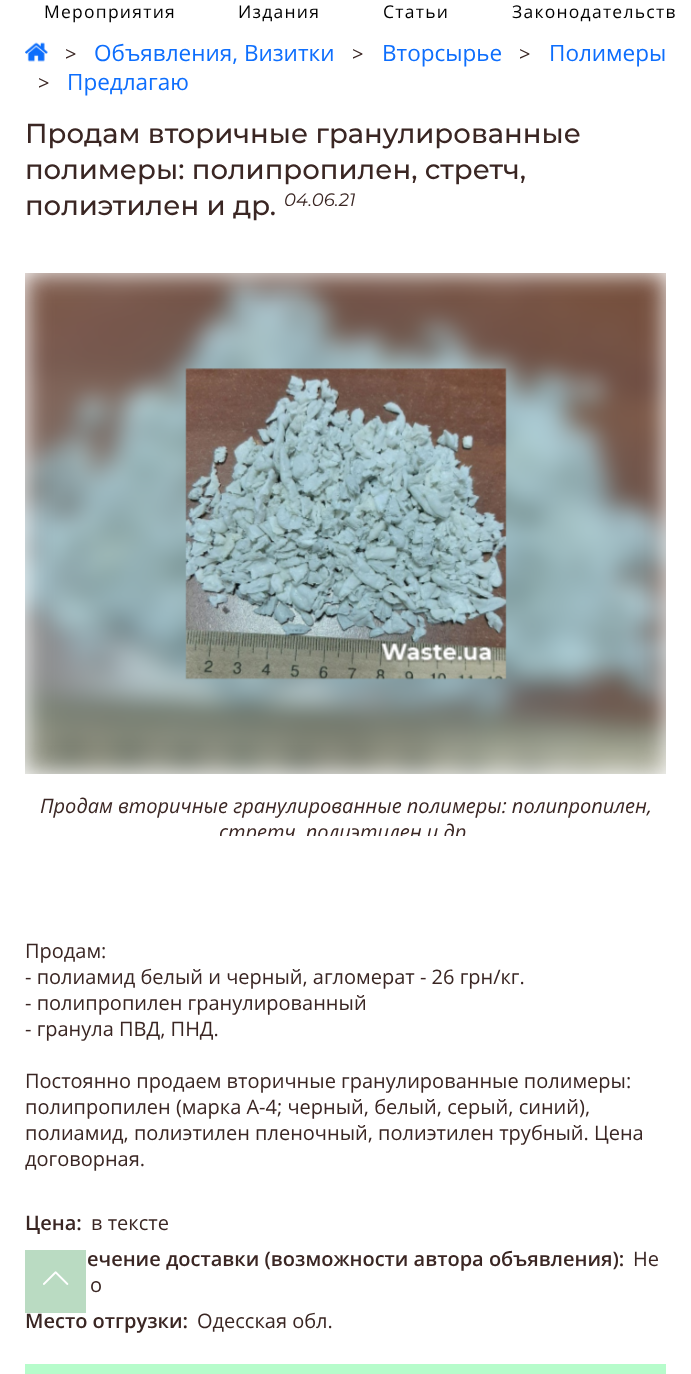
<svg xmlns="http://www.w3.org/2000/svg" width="691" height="1374">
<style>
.a{font:17.5px Open Sans;letter-spacing:1.25px;fill:#000}
.b{font:20px Open Sans;fill:#3a2623}
.c{font:22.5px Open Sans;fill:#0d6efd}
.d{font:500 27.5px Montserrat;fill:#3a2623}
.e{font:italic 18px Montserrat;fill:#3a2623}
.f{font:italic 20px Open Sans;fill:#3a2623}
.g{font:600 20px Open Sans;fill:#3a2623}
</style>
<defs>
<clipPath id="clip1"><path d="M25 274h641v562H25z"/></clipPath>
</defs>
<rect width="100%" height="100%" fill="#fff"/>
<image href="1.png" x="25" y="42" width="23" height="20"/>
<image href="2.png" x="25" y="273" width="641" height="501"/>
<image href="3.png" x="185" y="368" width="322" height="312"/>
<image href="4.png" x="379" y="641" width="115" height="22"/>
<path fill="#b6fccb" d="M25 1364h641v10H25z"/>
<path fill="#badbc2" d="M25 1250h61v63H25z"/>
<image href="5.png" x="43" y="1271" width="26" height="14"/>
<text class="a" x="44" y="18">Мероприятия</text>
<text class="a" x="238" y="18">Издания</text>
<text class="a" x="383" y="18">Статьи</text>
<text class="a" x="512" y="18">Законодательств</text>
<text class="b" x="65" y="61">&gt;</text>
<text class="c" x="94" y="61">Объявления, Визитки</text>
<text class="b" x="352" y="61">&gt;</text>
<text class="c" x="382" y="61">Вторсырье</text>
<text class="b" x="519" y="61">&gt;</text>
<text class="c" x="549" y="61">Полимеры</text>
<text class="b" x="38" y="90">&gt;</text>
<text class="c" x="67" y="90">Предлагаю</text>
<text class="d" x="25" y="143">Продам вторичные гранулированные</text>
<text class="d" x="25" y="179">полимеры: полипропилен, стретч,</text>
<text class="d" x="25" y="215">полиэтилен и др.</text>
<text class="e" x="284" y="206">04.06.21</text>
<text class="f" x="40" y="813">Продам вторичные гранулированные полимеры: полипропилен,</text>
<g clip-path="url(#clip1)">
<text class="f" x="219" y="839">стретч, полиэтилен и др</text>
</g>
<text class="b" x="25" y="958">Продам:</text>
<text class="b" x="25" y="984">- полиамид белый и черный, агломерат - 26 грн/кг.</text>
<text class="b" x="25" y="1010">- полипропилен гранулированный</text>
<text class="b" x="25" y="1036">- гранула ПВД, ПНД.</text>
<text class="b" x="25" y="1088">Постоянно продаем вторичные гранулированные полимеры:</text>
<text class="b" x="25" y="1114">полипропилен (марка А-4; черный, белый, серый, синий),</text>
<text class="b" x="25" y="1140">полиамид, полиэтилен пленочный, полиэтилен трубный. Цена</text>
<text class="b" x="25" y="1166">договорная.</text>
<text class="g" x="25" y="1230">Цена:</text>
<text class="b" x="91" y="1230">в тексте</text>
<text class="g" x="87" y="1266">ечение доставки (возможности автора объявления):</text>
<text class="b" x="633" y="1266">Не</text>
<text class="b" x="90" y="1292">о</text>
<text class="g" x="25" y="1328">Место отгрузки:</text>
<text class="b" x="197" y="1328">Одесская обл.</text>
</svg>
